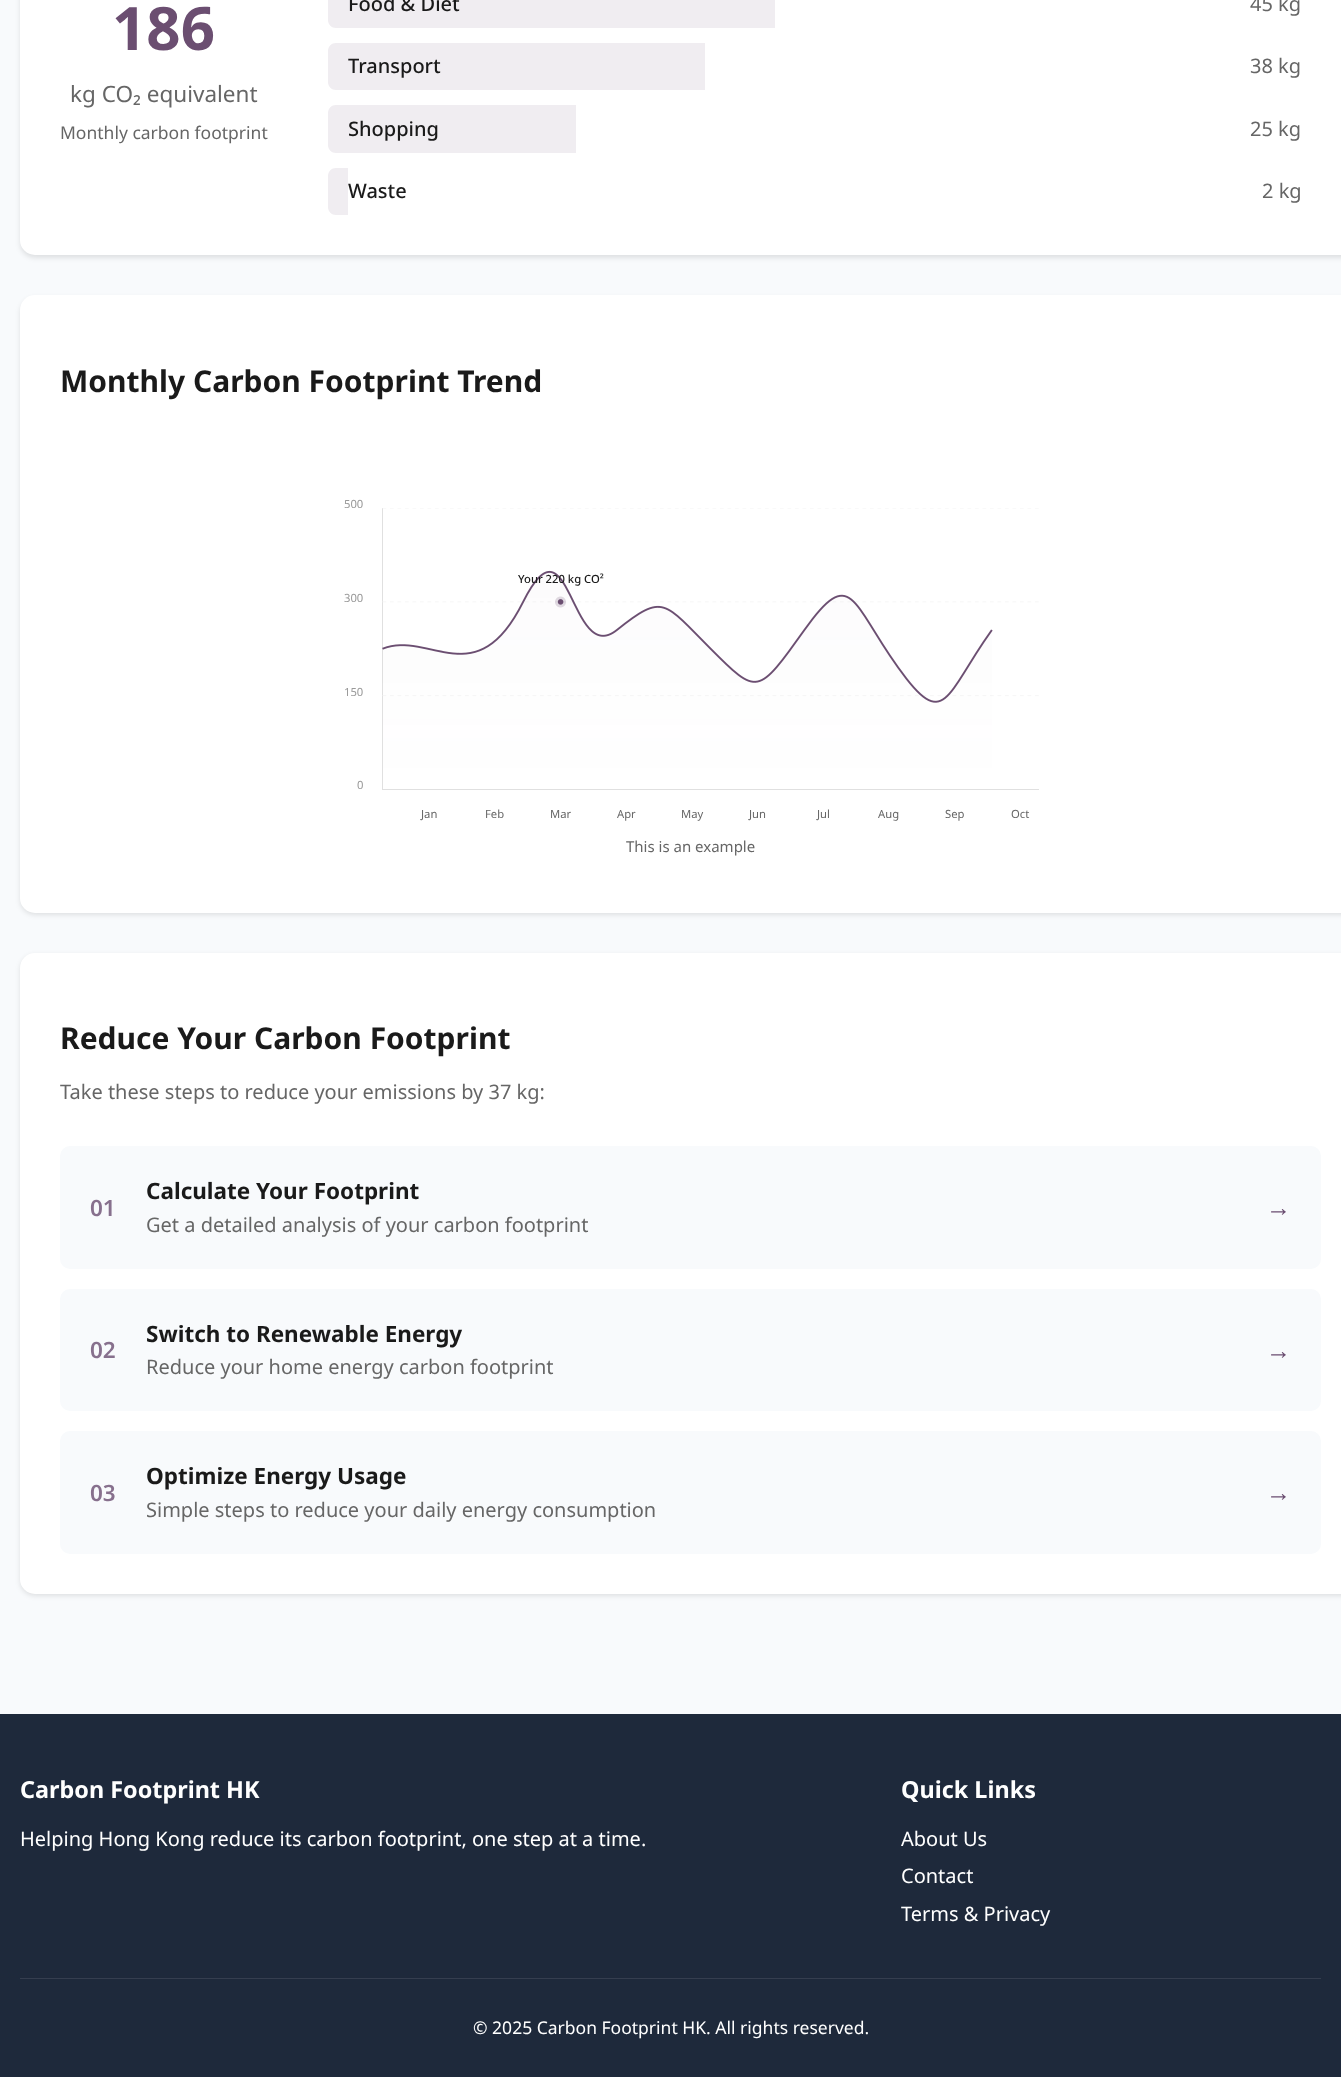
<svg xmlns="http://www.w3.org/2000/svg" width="1341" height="2077">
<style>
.a{font:bold 60px Noto Sans;fill:#6b4e71}
.b{font:22.5px Noto Sans;fill:#666}
.c{font:17.5px Noto Sans;fill:#666}
.d{font:500 20px Noto Sans;fill:#1a1a1a}
.e{font:20px Noto Sans;fill:#666}
.f{font:bold 30px Noto Sans;fill:#1a1a1a}
.g{font:11.25px Noto Sans;fill:#999}
.h{font:500 11.25px Noto Sans;fill:#1a1a1a}
.i{font:11.25px Noto Sans;fill:#666}
.j{font:15px Noto Sans;fill:#666}
.k{font:600 22.5px Noto Sans;fill:#87708d}
.l{font:bold 22.5px Noto Sans;fill:#1a1a1a}
.m{font:25px Liberation Sans;fill:#6b4e71}
.n{font:bold 23.4px Noto Sans;fill:#fff}
.o{font:20px Noto Sans;fill:#fff}
.p{font:17.5px Noto Sans;fill:#fff}
</style>
<rect width="100%" height="100%" fill="#f8fafc"/>
<rect fill="#0000001a" filter="blur(2.5px)" x="20" y="-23" width="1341" height="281" rx="15"/>
<rect fill="#fff" x="20" y="-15" width="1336" height="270" rx="15"/>
<path fill="#f0edf1" d="M336-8h439v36h-439c-4.5 0-8-3.5-8-8v-20c0-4.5 3.5-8 8-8z"/>
<path fill="#f0edf1" d="M336 43h369v47h-369c-4.5 0-8-3.5-8-8v-31c0-4.5 3.5-8 8-8z"/>
<path fill="#f0edf1" d="M336 105h240v48h-240c-4.5 0-8-3.5-8-8v-32c0-4.5 3.5-8 8-8z"/>
<path fill="#f0edf1" d="M336 168h12v47h-12c-4.5 0-8-3.5-8-8v-31c0-4.5 3.5-8 8-8z"/>
<rect fill="#0000001a" filter="blur(2.5px)" x="20" y="298" width="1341" height="617" rx="15"/>
<rect fill="#fff" x="20" y="295" width="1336" height="618" rx="15"/>
<image href="1.png" x="382" y="508" width="657" height="282"/>
<rect fill="#0000001a" filter="blur(2.5px)" x="20" y="955" width="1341" height="641" rx="15"/>
<rect fill="#fff" x="20" y="953" width="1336" height="641" rx="15"/>
<rect fill="#f8fafc" x="60" y="1146" width="1261" height="123" rx="10"/>
<rect fill="#f8fafc" x="60" y="1289" width="1261" height="122" rx="10"/>
<rect fill="#f8fafc" x="60" y="1431" width="1261" height="123" rx="10"/>
<path fill="#1e293b" d="M0 1714h1341v363H0z"/>
<path fill="#353e4f" d="M20 1978h1301v1H20z"/>
<text class="a" x="112" y="50">186</text>
<text class="b" x="70" y="102">kg CO₂ equivalent</text>
<text class="c" x="60" y="139">Monthly carbon footprint</text>
<text class="d" x="348" y="11">Food &amp; Diet</text>
<text class="e" x="1250" y="11">45 kg</text>
<text class="d" x="348" y="73">Transport</text>
<text class="e" x="1250" y="73">38 kg</text>
<text class="d" x="348" y="136">Shopping</text>
<text class="e" x="1250" y="136">25 kg</text>
<text class="d" x="348" y="198">Waste</text>
<text class="e" x="1262" y="198">2 kg</text>
<text class="f" x="60" y="392">Monthly Carbon Footprint Trend</text>
<text class="g" x="344" y="508">500</text>
<text class="h" x="518" y="583">Your 220 kg CO²</text>
<text class="g" x="344" y="602">300</text>
<text class="g" x="344" y="696">150</text>
<text class="g" x="357" y="789">0</text>
<text class="i" x="421" y="818">Jan</text>
<text class="i" x="485" y="818">Feb</text>
<text class="i" x="550" y="818">Mar</text>
<text class="i" x="617" y="818">Apr</text>
<text class="i" x="681" y="818">May</text>
<text class="i" x="749" y="818">Jun</text>
<text class="i" x="817" y="818">Jul</text>
<text class="i" x="878" y="818">Aug</text>
<text class="i" x="945" y="818">Sep</text>
<text class="i" x="1011" y="818">Oct</text>
<text class="j" x="626" y="852">This is an example</text>
<text class="f" x="60" y="1049">Reduce Your Carbon Footprint</text>
<text class="e" x="60" y="1099">Take these steps to reduce your emissions by 37 kg:</text>
<text class="k" x="90" y="1216">01</text>
<text class="l" x="146" y="1199">Calculate Your Footprint</text>
<text class="e" x="146" y="1232">Get a detailed analysis of your carbon footprint</text>
<text class="m" x="1266" y="1216">→</text>
<text class="k" x="90" y="1358">02</text>
<text class="l" x="146" y="1342">Switch to Renewable Energy</text>
<text class="e" x="146" y="1374">Reduce your home energy carbon footprint</text>
<text class="m" x="1266" y="1359">→</text>
<text class="k" x="90" y="1501">03</text>
<text class="l" x="146" y="1484">Optimize Energy Usage</text>
<text class="e" x="146" y="1517">Simple steps to reduce your daily energy consumption</text>
<text class="m" x="1266" y="1501">→</text>
<text class="n" x="20" y="1798">Carbon Footprint HK</text>
<text class="o" x="20" y="1846">Helping Hong Kong reduce its carbon footprint, one step at a time.</text>
<text class="n" x="901" y="1798">Quick Links</text>
<text class="o" x="901" y="1846">About Us</text>
<text class="o" x="901" y="1883">Contact</text>
<text class="o" x="901" y="1921">Terms &amp; Privacy</text>
<text class="p" x="473" y="2034">© 2025 Carbon Footprint HK. All rights reserved.</text>
</svg>
